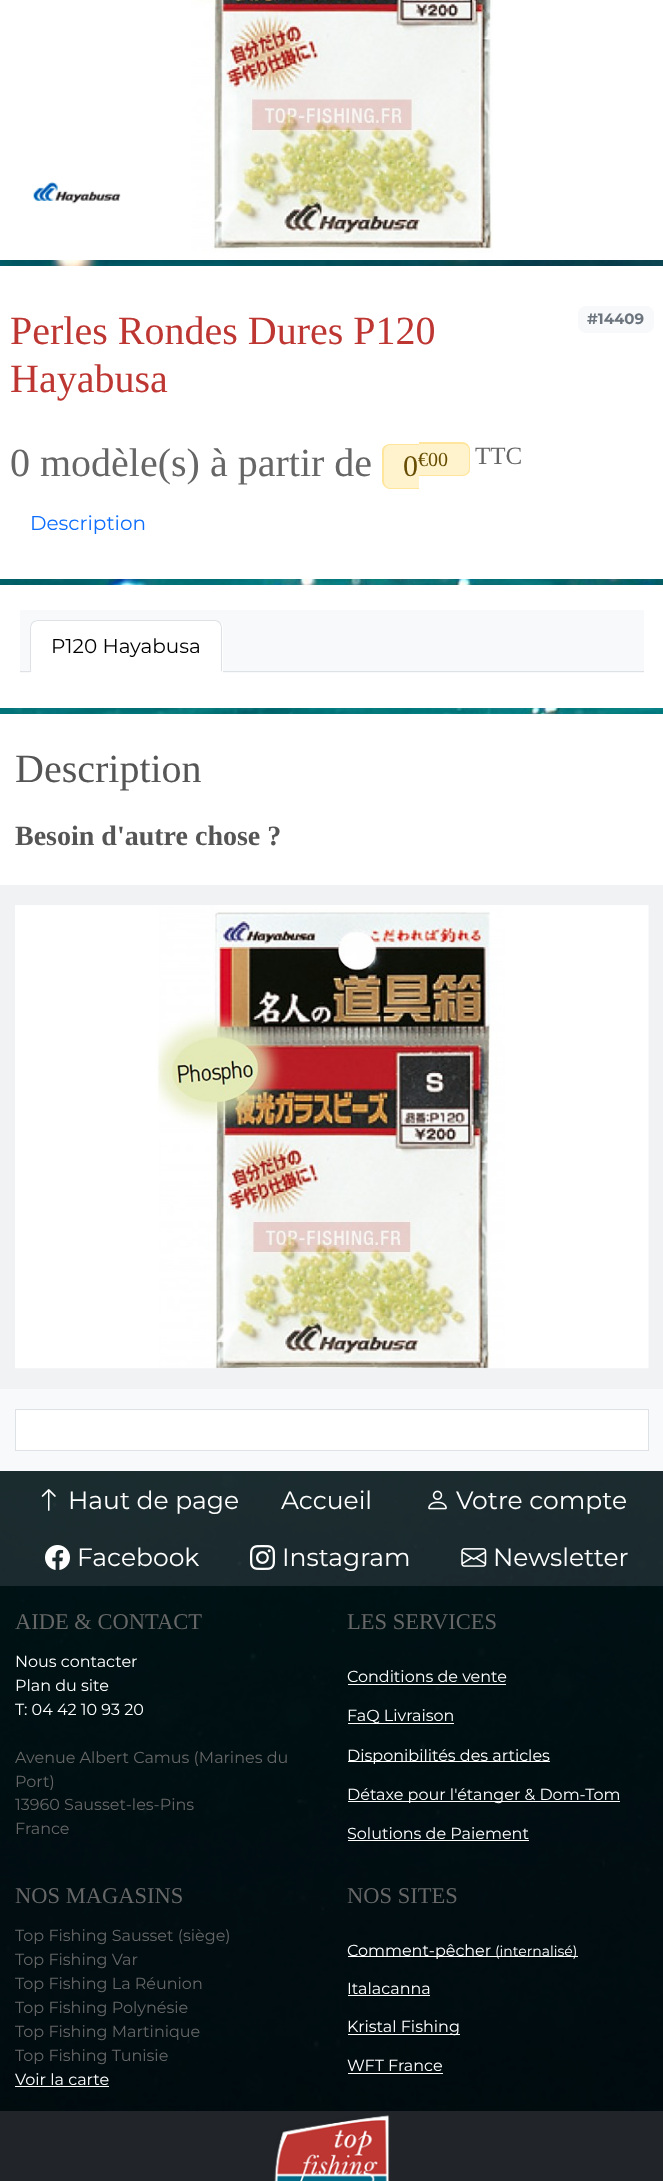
<svg xmlns="http://www.w3.org/2000/svg" width="663" height="2181">
<style>
.a{font:40px Liberation Serif;fill:#bd3632}
.b{font:bold 15px Montserrat;fill:#6c757d}
.c{font:40px Liberation Serif;fill:#666}
.d{font:30px Liberation Serif;fill:#664d03}
.e{font:20px Liberation Serif;fill:#664d03}
.f{font:25px Liberation Serif;fill:#666}
.g{font:20px Montserrat;fill:#0d6efd}
.h{font:20px Montserrat;fill:#000}
.i{font:40px Liberation Serif;fill:#555}
.j{font:bold 28px Liberation Serif;fill:#555}
.k{font:25px Montserrat;fill:#fff}
.l{font:22.5px Liberation Serif;fill:#666}
.m{font:16px Montserrat;fill:#fff}
.n{font:16px Montserrat;fill:#666}
.o{font:14px Montserrat;fill:#fff}
</style>
<rect width="100%" height="100%" fill="#fff"/>
<image href="1.png" x="0" y="260" width="663" height="1851"/>
<image href="2.png" x="33" y="181" width="88" height="23"/>
<image href="3.png" x="191" y="0" width="302" height="253"/>
<path fill="#fff" d="M0 266h663v313H0z"/>
<rect fill="#f8f9fa" x="578" y="306" width="76" height="27" rx="8"/>
<path fill="#fff3cd" d="M391 444h28v45h-28c-4.5 0-8-3.5-8-8v-29c0-4.5 3.5-8 8-8z"/>
<path fill="#ffe69c" fill-rule="evenodd" d="M390 444h29v45h-29c-4 0-8-4-8-8v-30c0-4 4-7 8-7zm0 1h29v43h-29c-3 0-6-3-6-7v-30c0-3 3-6 6-6z"/>
<path fill="#fff3cd" d="M419 443h43c4.5 0 8 3.5 8 8v17c0 4.5-3.5 8-8 8h-43z"/>
<path fill="#ffe69c" fill-rule="evenodd" d="M419 442h43c5 0 8 4 8 8v19c0 4-3 7-8 7h-43zm0 2h43c4 0 7 3 7 6v19c0 3-3 6-7 6h-43z"/>
<path fill="#fff" d="M0 585h663v123H0z"/>
<path fill="#f8f9fa" d="M20 610h624v63H20z"/>
<path fill="#dee2e6" d="M20 671h624v1H20z"/>
<path fill="#fff" d="M38 620h177c4.5 0 8 3.5 8 8v45h-193v-45c0-4.5 3.5-8 8-8z"/>
<path fill="#dee2e6" d="M38 620c-2 0-4 1-6 2l1 1c1-1 3-2 5-2h177c2 0 3 1 4 2l1-1c-1-1-3-2-5-2z"/>
<path fill="#dee2e6" d="M220 622c1 2 2 4 2 6v44l-1-1v-43c0-2-1-4-2-5z"/>
<path fill="#fff" d="M222 672l-1-1h-189l-2 1z"/>
<path fill="#dee2e6" d="M30 628v44l2-1h-1v-43c0-2 1-4 2-5l-1-1c-1 2-2 4-2 6z"/>
<path fill="#fff" d="M0 714h663v171H0z"/>
<path fill="#f1f2f3" d="M0 885h663v504H0z"/>
<image href="4.png" x="15" y="905" width="634" height="464"/>
<path fill="#f8f9fa" d="M0 1389h663v82H0z"/>
<path fill="#dee2e6" d="M15 1409h634v1H15z"/>
<path fill="#fff" d="M16 1410h632v40H16z"/>
<path fill="#dee2e6" d="M648 1410h1v41H648z"/>
<path fill="#dee2e6" d="M15 1450h634v1H15z"/>
<path fill="#dee2e6" d="M15 1410h1v41H15z"/>
<path fill="#000000bf" d="M0 1471h663v640H0z"/>
<path fill="#6c757d40" d="M0 1471h663v115H0z"/>
<image href="5.png" x="41" y="1489" width="15" height="22"/>
<image href="6.png" x="428" y="1490" width="19" height="20"/>
<image href="7.png" x="45" y="1545" width="25" height="25"/>
<image href="8.png" x="250" y="1545" width="25" height="25"/>
<image href="9.png" x="461" y="1548" width="26" height="19"/>
<path fill="#fff" d="M348 1684h158v1H348z"/>
<path fill="#fff" d="M348 1723h106v1H348z"/>
<path fill="#fff" d="M348 1761h202v1H348z"/>
<path fill="#fff" d="M348 1801h272v1H348z"/>
<path fill="#fff" d="M348 1840h181v1H348z"/>
<path fill="#fff" d="M15 2086h94v1H15z"/>
<path fill="#fff" d="M348 1956h230v1H348z"/>
<path fill="#fff" d="M348 1995h82v1H348z"/>
<path fill="#fff" d="M348 2034h112v1H348z"/>
<path fill="#fff" d="M348 2073h95v1H348z"/>
<path fill="#212529" d="M0 2111h663v70H0z"/>
<image href="10.png" x="274" y="2115" width="116" height="66"/>
<text class="a" x="10" y="344">Perles Rondes Dures P120</text>
<text class="a" x="10" y="392">Hayabusa</text>
<text class="b" x="587" y="324">#14409</text>
<text class="c" x="10" y="476">0 modèle(s) à partir de</text>
<text class="d" x="403" y="476">0</text>
<text class="e" x="418" y="466">€00</text>
<text class="f" x="475" y="464">TTC</text>
<text class="g" x="30" y="530">Description</text>
<text class="h" x="51" y="653">P120 Hayabusa</text>
<text class="i" x="15" y="782">Description</text>
<text class="j" x="15" y="845">Besoin d'autre chose ?</text>
<text class="k" x="68" y="1509">Haut de page</text>
<text class="k" x="281" y="1509">Accueil</text>
<text class="k" x="456" y="1509">Votre compte</text>
<text class="k" x="77" y="1566">Facebook</text>
<text class="k" x="282" y="1566">Instagram</text>
<text class="k" x="493" y="1566">Newsletter</text>
<text class="l" x="15" y="1629">AIDE &amp; CONTACT</text>
<text class="m" x="15" y="1667">Nous contacter</text>
<text class="m" x="15" y="1691">Plan du site</text>
<text class="m" x="15" y="1715">T: 04 42 10 93 20</text>
<text class="n" x="15" y="1763">Avenue Albert Camus (Marines du</text>
<text class="n" x="15" y="1787">Port)</text>
<text class="n" x="15" y="1810">13960 Sausset-les-Pins</text>
<text class="n" x="15" y="1834">France</text>
<text class="l" x="347" y="1629">LES SERVICES</text>
<text class="m" x="347" y="1682">Conditions de vente</text>
<text class="m" x="347" y="1721">FaQ Livraison</text>
<text class="m" x="347" y="1761">Disponibilités des articles</text>
<text class="m" x="347" y="1800">Détaxe pour l'étanger &amp; Dom-Tom</text>
<text class="m" x="347" y="1839">Solutions de Paiement</text>
<text class="l" x="15" y="1903">NOS MAGASINS</text>
<text class="n" x="15" y="1941">Top Fishing Sausset (siège)</text>
<text class="n" x="15" y="1965">Top Fishing Var</text>
<text class="n" x="15" y="1989">Top Fishing La Réunion</text>
<text class="n" x="15" y="2013">Top Fishing Polynésie</text>
<text class="n" x="15" y="2037">Top Fishing Martinique</text>
<text class="n" x="15" y="2061">Top Fishing Tunisie</text>
<text class="m" x="15" y="2085">Voir la carte</text>
<text class="l" x="347" y="1903">NOS SITES</text>
<text class="m" x="347" y="1956">Comment-pêcher</text>
<text class="o" x="495" y="1956">(internalisé)</text>
<text class="m" x="347" y="1994">Italacanna</text>
<text class="m" x="347" y="2032">Kristal Fishing</text>
<text class="m" x="347" y="2071">WFT France</text>
</svg>
